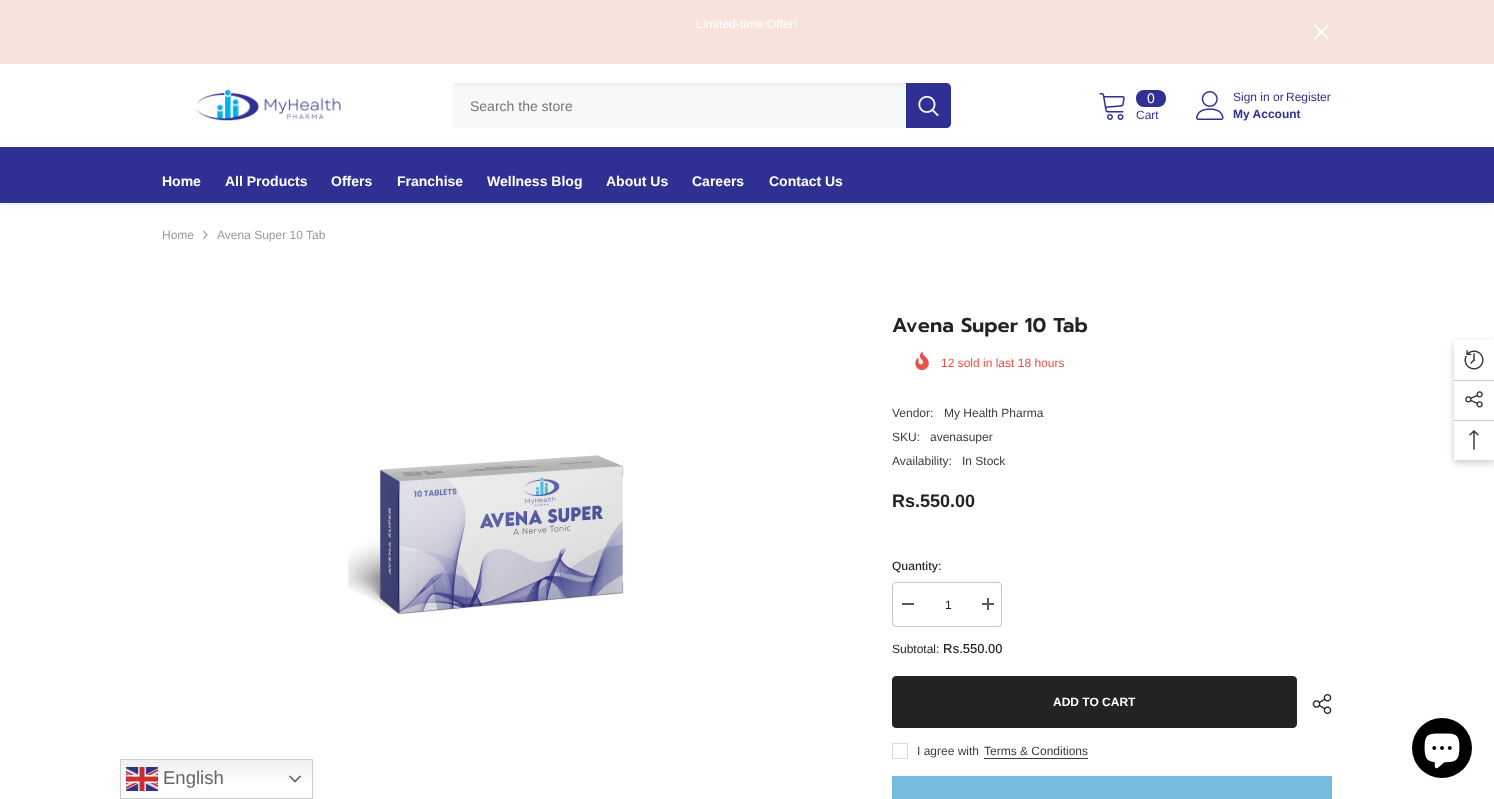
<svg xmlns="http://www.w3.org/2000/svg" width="1494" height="799">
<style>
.a{font:500 12px Arimo;fill:#fff}
.b{font:14px Arimo;fill:#767676}
.c{font:14px Arimo;fill:#fff}
.d{font:12px Arimo;fill:#2e3094}
.e{font:bold 12px Arimo;fill:#2e3094}
.f{font:bold 14px Arimo;fill:#fff}
.g{font:12px Arimo;fill:#999}
.h{font:600 20px Prompt;fill:#232323}
.i{font:12px Arimo;fill:#e95144}
.j{font:12px Arimo;fill:#3c3c3c}
.k{font:bold 18px Arimo;fill:#232323}
.l{font:500 12px Arimo;fill:#232323}
.m{font:12px Arimo;fill:#232323}
.n{font:500 13px Arimo;fill:#232323}
.o{font:bold 12px Arimo;fill:#fff}
.p{font:12px Liberation Sans;fill:#3c3c3c}
.q{font:18.5px Liberation Sans;fill:#666}
</style>
<defs>
<linearGradient id="g1" gradientUnits="userSpaceOnUse" x1="702" y1="83" x2="702" y2="128"><stop offset="0" stop-color="#e9ebee"/><stop offset="0.1" stop-color="#f7f8fa"/><stop offset="1" stop-color="#f7f8fa"/></linearGradient>
<clipPath id="clip1"><path d="M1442 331h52v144h-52zm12 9h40v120h-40z" clip-rule="evenodd"/></clipPath>
<linearGradient id="g2" gradientUnits="userSpaceOnUse" x1="217" y1="759" x2="217" y2="799"><stop offset="0" stop-color="#efefef"/><stop offset="0.7" stop-color="#fff"/></linearGradient>
</defs>
<rect width="100%" height="100%" fill="#fff"/>
<path fill="#f7e3dc" d="M0 0h1494v64H0z"/>
<image href="1.png" x="1314" y="24" width="15" height="16"/>
<path fill="#0000001a" filter="blur(3px)" d="M0 148h1494v56H0z"/>
<path fill="#fff" d="M0 144h1494v3H0z"/>
<image href="2.png" x="197" y="90" width="145" height="31"/>
<rect fill="url(#g1)" x="452" y="83" width="499" height="45" rx="5"/>
<path fill="#2e3094" d="M906 83h40c3 0 5 2 5 5v35c0 3-2 5-5 5h-40z"/>
<image href="3.png" x="918" y="95" width="21" height="22"/>
<image href="4.png" x="1099" y="93" width="26" height="27"/>
<rect fill="#2e3094" x="1136" y="90" width="30" height="17" rx="8"/>
<image href="5.png" x="1196" y="91" width="28" height="29"/>
<path fill="#2e3094" d="M0 147h1494v56H0z"/>
<image href="6.png" x="203" y="230" width="5" height="10"/>
<image href="7.png" x="348" y="455" width="276" height="160"/>
<image href="8.png" x="915" y="352" width="14" height="18"/>
<rect fill="none" stroke="#c7c7c7" x="892.5" y="582.5" width="109" height="44" rx="3.5"/>
<path fill="#5a5a5a" d="M902 603h12v2H902z"/>
<path fill="#5a5a5a" d="M982 603h12v2H982z"/>
<path fill="#5a5a5a" d="M987 598h2v12H987z"/>
<rect fill="#232323" stroke="#232323" x="892.5" y="676.5" width="404" height="51" rx="3.5"/>
<image href="9.png" x="1312" y="694" width="20" height="20"/>
<path fill="none" stroke="#dbdbdb" d="M892.5 743.5h15v15H892.5z"/>
<path fill="#3c3c3c" d="M984 758h104v1H984z"/>
<path fill="#75bcdd" d="M892 776h440v23H892z"/>
<g clip-path="url(#clip1)">
<path fill="#00000033" filter="blur(3.5px)" d="M1454 343h40v120H1454z"/>
</g>
<image href="10.png" x="1464" y="350" width="20" height="20"/>
<path fill="#ccc" d="M1454 380h40v1H1454z"/>
<image href="11.png" x="1465" y="391" width="18" height="17"/>
<path fill="#ccc" d="M1454 420h40v1H1454z"/>
<image href="12.png" x="1469" y="430" width="10" height="20"/>
<path fill="url(#g2)" d="M121 760h191v23H121z"/>
<path fill="none" stroke="#ccc" d="M120.5 759.5h192v39H120.5z"/>
<image href="13.png" x="126" y="767" width="32" height="24"/>
<image href="14.png" x="289" y="775" width="12" height="8"/>
<circle fill="#000" cx="1442" cy="748" r="30"/>
<image href="15.png" x="1424" y="733" width="36" height="36"/>
<text class="a" x="696" y="28">Limited-time Offer!</text>
<text class="b" x="470" y="111">Search the store</text>
<text class="c" x="1147" y="103">0</text>
<text class="d" x="1136" y="119">Cart</text>
<text class="d" x="1233" y="101">Sign in</text>
<text class="d" x="1273" y="101">or</text>
<text class="d" x="1286" y="101">Register</text>
<text class="e" x="1233" y="118">My Account</text>
<text class="f" x="162" y="186">Home</text>
<text class="f" x="225" y="186">All Products</text>
<text class="f" x="331" y="186">Offers</text>
<text class="f" x="397" y="186">Franchise</text>
<text class="f" x="487" y="186">Wellness Blog</text>
<text class="f" x="606" y="186">About Us</text>
<text class="f" x="692" y="186">Careers</text>
<text class="f" x="769" y="186">Contact Us</text>
<text class="g" x="162" y="239">Home</text>
<text class="g" x="217" y="239">Avena Super 10 Tab</text>
<text class="h" x="892" y="332">Avena Super 10 Tab</text>
<text class="i" x="941" y="367">12 sold in last 18 hours</text>
<text class="j" x="892" y="417">Vendor:</text>
<text class="j" x="944" y="417">My Health Pharma</text>
<text class="j" x="892" y="441">SKU:</text>
<text class="j" x="930" y="441">avenasuper</text>
<text class="j" x="892" y="465">Availability:</text>
<text class="j" x="962" y="465">In Stock</text>
<text class="k" x="892" y="507">Rs.550.00</text>
<text class="l" x="892" y="570">Quantity:</text>
<text class="m" x="945" y="609">1</text>
<text class="m" x="892" y="653">Subtotal:</text>
<text class="n" x="943" y="653">Rs.550.00</text>
<text class="o" x="1053" y="706">ADD TO CART</text>
<text class="j" x="917" y="755">I agree with</text>
<text class="p" x="984" y="755">Terms &amp; Conditions</text>
<text class="q" x="163" y="784">English</text>
</svg>
